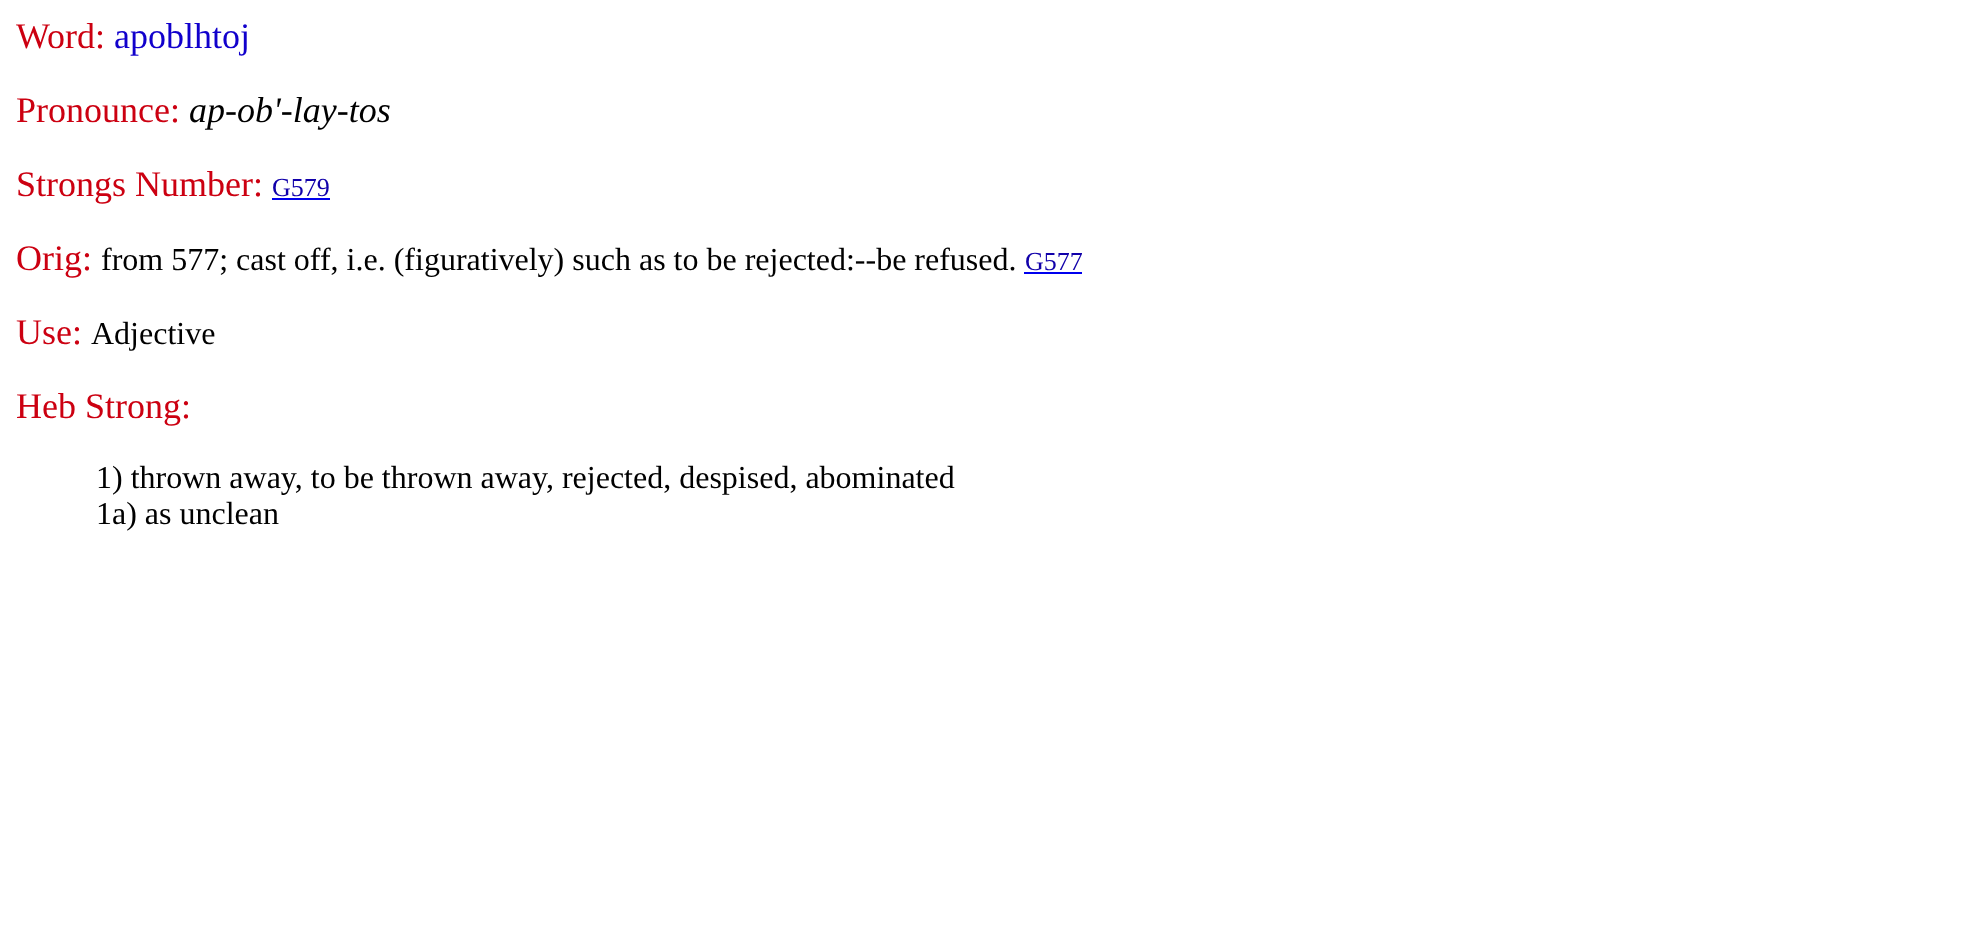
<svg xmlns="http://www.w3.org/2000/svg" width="1963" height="938">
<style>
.a{font:36px Liberation Serif;fill:#c01}
.b{font:36px Liberation Serif;fill:#10c}
.c{font:italic 36px Liberation Serif;fill:#000}
.d{font:26px Liberation Serif;fill:#10a}
.e{font:32px Liberation Serif;fill:#000}
</style>
<rect width="100%" height="100%" fill="#fff"/>
<path fill="#00e" d="M272 198h58v2H272z"/>
<path fill="#00e" d="M1024 272h58v2H1024z"/>
<text class="a" x="16" y="48">Word:</text>
<text class="b" x="114" y="48">apoblhtoj</text>
<text class="a" x="16" y="122">Pronounce:</text>
<text class="c" x="189" y="122">ap-ob'-lay-tos</text>
<text class="a" x="16" y="196">Strongs Number:</text>
<text class="d" x="272" y="196">G579</text>
<text class="a" x="16" y="270">Orig:</text>
<text class="e" x="101" y="270">from 577; cast off, i.e. (figuratively) such as to be rejected:--be refused.</text>
<text class="d" x="1025" y="270">G577</text>
<text class="a" x="16" y="344">Use:</text>
<text class="e" x="91" y="344">Adjective</text>
<text class="a" x="16" y="418">Heb Strong:</text>
<text class="e" x="96" y="488">1) thrown away, to be thrown away, rejected, despised, abominated</text>
<text class="e" x="96" y="524">1a) as unclean</text>
</svg>
